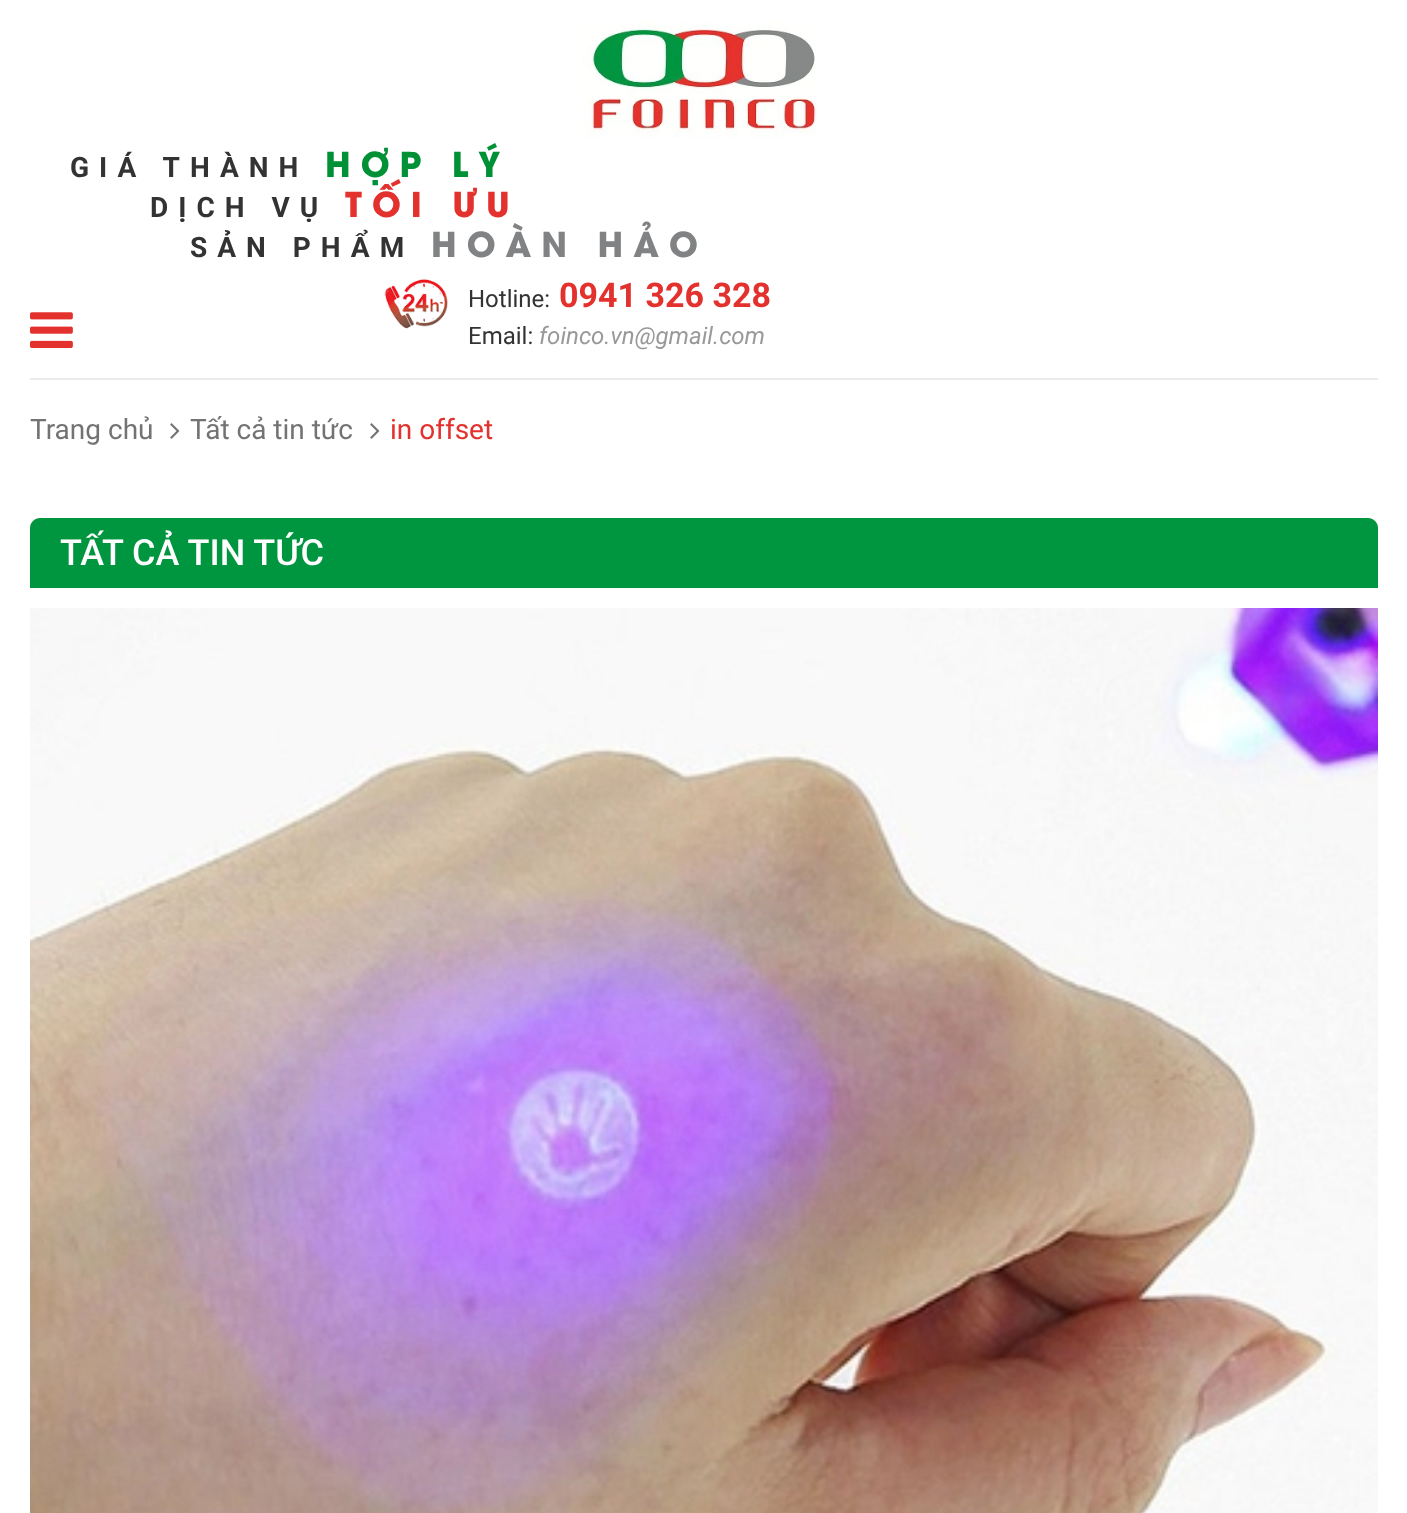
<svg xmlns="http://www.w3.org/2000/svg" width="1407" height="1513">
<style>
.a{font:bold 28px Roboto;letter-spacing:10px;fill:#333}
.b{font:bold 34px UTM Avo;letter-spacing:10px;fill:#009136}
.c{font:bold 34px UTM Avo;letter-spacing:10px;fill:#e3312d}
.d{font:bold 34px UTM Avo;letter-spacing:10px;fill:#818284}
.e{font:24px Roboto;fill:#333}
.f{font:bold 34px Roboto;fill:#e3312d}
.g{font:italic 24px Roboto;fill:#999}
.h{font:28px Roboto;fill:#737373}
.i{font:28px Roboto;fill:#e3312d}
.j{font:500 36px Roboto;fill:#fff}
</style>
<rect width="100%" height="100%" fill="#fff"/>
<image href="1.png" x="582" y="21" width="235" height="117"/>
<image href="2.png" x="30" y="312" width="43" height="36"/>
<image href="3.png" x="384" y="279" width="64" height="50"/>
<path fill="#ebebeb" d="M30 378h1348v2H30z"/>
<image href="4.png" x="170" y="423" width="10" height="16"/>
<image href="4.png" x="370" y="423" width="10" height="16"/>
<path fill="#009640" d="M40 518h1328c5.5 0 10 4.5 10 10v60h-1348v-60c0-5.5 4.5-10 10-10z"/>
<image href="5.png" x="30" y="608" width="1348" height="905"/>
<text class="a" x="70" y="177">GIÁ THÀNH</text>
<text class="b" x="325" y="177">HỢP LÝ</text>
<text class="a" x="150" y="217">DỊCH VỤ</text>
<text class="c" x="345" y="217">TỐI ƯU</text>
<text class="a" x="190" y="257">SẢN PHẨM</text>
<text class="d" x="431" y="257">HOÀN HẢO</text>
<text class="e" x="468" y="307">Hotline:</text>
<text class="f" x="559" y="307">0941 326 328</text>
<text class="e" x="468" y="344">Email:</text>
<text class="g" x="539" y="344">foinco.vn@gmail.com</text>
<text class="h" x="30" y="439">Trang chủ</text>
<text class="h" x="190" y="439">Tất cả tin tức</text>
<text class="i" x="390" y="439">in offset</text>
<text class="j" x="60" y="565">TẤT CẢ TIN TỨC</text>
</svg>
